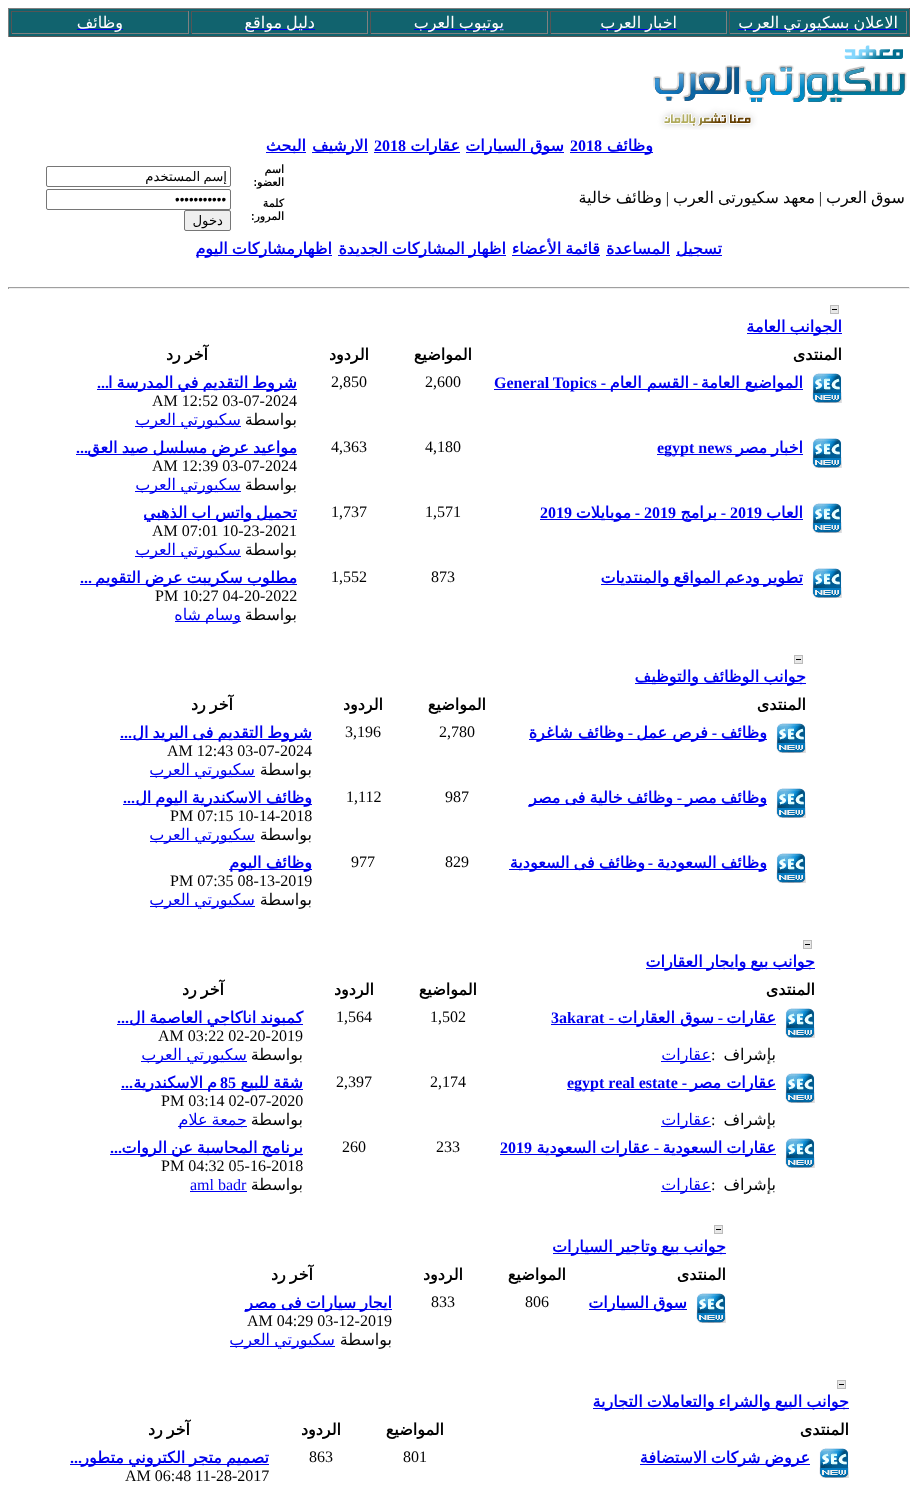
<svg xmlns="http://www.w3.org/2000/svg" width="918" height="1493">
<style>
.a{font:16px DejaVu Sans;direction:rtl;fill:#fff}
.b{font:bold 16px DejaVu Sans;direction:rtl;fill:#00e}
.c{font:bold 16px Liberation Serif;fill:#00e}
.d{font:16px DejaVu Sans;direction:rtl;fill:#000}
.e{font:16px Liberation Serif;direction:rtl;fill:#000}
.f{font:bold 11px DejaVu Sans;direction:rtl;fill:#000}
.g{font:13.25px DejaVu Sans;direction:rtl;fill:#000}
.h{font:13.25px Liberation Sans;fill:#000}
.i{font:bold 16px DejaVu Sans;direction:rtl;fill:#000}
.j{font:bold 16px Liberation Serif;direction:rtl;fill:#00e}
.k{font:16px Liberation Serif;fill:#000}
.l{font:16px DejaVu Sans;direction:rtl;fill:#00e}
.m{font:16px Liberation Serif;fill:#00e}
</style>
<defs>
<clipPath id="clip1"><path d="M50 169h177v15H50z"/></clipPath>
</defs>
<rect width="100%" height="100%" fill="#fff"/>
<path fill="#11636e" d="M9 9h900v27H9z"/>
<path fill="#808080" d="M8 8h902v1H8z"/>
<path fill="#555" d="M909 8h1v29H909z"/>
<path fill="#555" d="M8 36h902v1H8z"/>
<path fill="#808080" d="M8 8h1v29H8z"/>
<path fill="#555" d="M729 11h178v1H729z"/>
<path fill="#808080" d="M906 11h1v23H906z"/>
<path fill="#808080" d="M729 33h178v1H729z"/>
<path fill="#555" d="M729 11h1v23H729z"/>
<path fill="#00e" d="M738 29h160v1H738z"/>
<path fill="#555" d="M550 11h177v1H550z"/>
<path fill="#808080" d="M726 11h1v23H726z"/>
<path fill="#808080" d="M550 33h177v1H550z"/>
<path fill="#555" d="M550 11h1v23H550z"/>
<path fill="#00e" d="M600 29h77v1H600z"/>
<path fill="#555" d="M370 11h178v1H370z"/>
<path fill="#808080" d="M547 11h1v23H547z"/>
<path fill="#808080" d="M370 33h178v1H370z"/>
<path fill="#555" d="M370 11h1v23H370z"/>
<path fill="#00e" d="M414 29h90v1H414z"/>
<path fill="#555" d="M191 11h177v1H191z"/>
<path fill="#808080" d="M367 11h1v23H367z"/>
<path fill="#808080" d="M191 33h177v1H191z"/>
<path fill="#555" d="M191 11h1v23H191z"/>
<path fill="#00e" d="M244 29h71v1H244z"/>
<path fill="#555" d="M11 11h178v1H11z"/>
<path fill="#808080" d="M188 11h1v23H188z"/>
<path fill="#808080" d="M11 33h178v1H11z"/>
<path fill="#555" d="M11 11h1v23H11z"/>
<path fill="#00e" d="M77 29h46v1H77z"/>
<image href="1.png" x="653" y="45" width="254" height="85"/>
<path fill="#00e" d="M570 152h83v1H570z"/>
<path fill="#00e" d="M466 152h98v1H466z"/>
<path fill="#00e" d="M374 152h86v1H374z"/>
<path fill="#00e" d="M312 152h56v1H312z"/>
<path fill="#00e" d="M266 152h40v1H266z"/>
<rect fill="none" stroke="#767676" x="46.5" y="166.5" width="184" height="20" rx="1.5"/>
<rect fill="none" stroke="#767676" x="46.5" y="189.5" width="184" height="20" rx="1.5"/>
<rect fill="#efefef" stroke="#767676" x="184.5" y="210.5" width="46" height="20" rx="1.5"/>
<path fill="#00e" d="M676 255h46v1H676z"/>
<path fill="#00e" d="M606 255h64v1H606z"/>
<path fill="#00e" d="M512 255h88v1H512z"/>
<path fill="#00e" d="M338 255h168v1H338z"/>
<path fill="#00e" d="M196 255h136v1H196z"/>
<path fill="#9f9f9f" d="M8 287h902v1H8z"/>
<path fill="#eee" d="M909 287h1v2H909z"/>
<path fill="#eee" d="M8 288h902v1H8z"/>
<path fill="#9f9f9f" d="M8 287h1v2H8z"/>
<image href="2.png" x="830" y="305" width="9" height="9"/>
<path fill="#00e" d="M747 333h95v1H747z"/>
<image href="3.png" x="812" y="373" width="30" height="30"/>
<path fill="#00e" d="M494 389h309v1H494z"/>
<path fill="#00e" d="M97 389h200v1H97z"/>
<path fill="#00e" d="M135 426h106v1H135z"/>
<image href="3.png" x="812" y="438" width="30" height="30"/>
<path fill="#00e" d="M657 454h146v1H657z"/>
<path fill="#00e" d="M76 454h221v1H76z"/>
<path fill="#00e" d="M135 491h106v1H135z"/>
<image href="3.png" x="812" y="503" width="30" height="30"/>
<path fill="#00e" d="M540 519h263v1H540z"/>
<path fill="#00e" d="M144 519h153v1H144z"/>
<path fill="#00e" d="M135 556h106v1H135z"/>
<image href="3.png" x="812" y="568" width="30" height="30"/>
<path fill="#00e" d="M601 584h202v1H601z"/>
<path fill="#00e" d="M80 584h217v1H80z"/>
<path fill="#00e" d="M175 621h66v1H175z"/>
<image href="2.png" x="794" y="655" width="9" height="9"/>
<path fill="#00e" d="M635 683h171v1H635z"/>
<image href="3.png" x="776" y="723" width="30" height="30"/>
<path fill="#00e" d="M529 739h238v1H529z"/>
<path fill="#00e" d="M120 739h192v1H120z"/>
<path fill="#00e" d="M150 776h105v1H150z"/>
<image href="3.png" x="776" y="788" width="30" height="30"/>
<path fill="#00e" d="M529 804h238v1H529z"/>
<path fill="#00e" d="M123 804h189v1H123z"/>
<path fill="#00e" d="M150 841h105v1H150z"/>
<image href="3.png" x="776" y="853" width="30" height="30"/>
<path fill="#00e" d="M509 869h258v1H509z"/>
<path fill="#00e" d="M229 869h83v1H229z"/>
<path fill="#00e" d="M150 906h105v1H150z"/>
<image href="2.png" x="803" y="940" width="9" height="9"/>
<path fill="#00e" d="M646 968h169v1H646z"/>
<image href="3.png" x="785" y="1008" width="30" height="30"/>
<path fill="#00e" d="M551 1024h225v1H551z"/>
<path fill="#00e" d="M661 1061h50v1H661z"/>
<path fill="#00e" d="M117 1024h186v1H117z"/>
<path fill="#00e" d="M141 1061h106v1H141z"/>
<image href="3.png" x="785" y="1073" width="30" height="30"/>
<path fill="#00e" d="M567 1089h209v1H567z"/>
<path fill="#00e" d="M661 1126h50v1H661z"/>
<path fill="#00e" d="M121 1089h182v1H121z"/>
<path fill="#00e" d="M178 1126h69v1H178z"/>
<image href="3.png" x="785" y="1138" width="30" height="30"/>
<path fill="#00e" d="M500 1154h276v1H500z"/>
<path fill="#00e" d="M661 1191h50v1H661z"/>
<path fill="#00e" d="M110 1154h193v1H110z"/>
<path fill="#00e" d="M190 1191h57v1H190z"/>
<image href="2.png" x="714" y="1225" width="9" height="9"/>
<path fill="#00e" d="M553 1253h173v1H553z"/>
<image href="3.png" x="696" y="1293" width="30" height="30"/>
<path fill="#00e" d="M589 1309h98v1H589z"/>
<path fill="#00e" d="M245 1309h147v1H245z"/>
<path fill="#00e" d="M230 1346h105v1H230z"/>
<image href="2.png" x="837" y="1380" width="9" height="9"/>
<path fill="#00e" d="M593 1408h256v1H593z"/>
<image href="3.png" x="819" y="1448" width="30" height="30"/>
<path fill="#00e" d="M640 1464h170v1H640z"/>
<path fill="#00e" d="M70 1464h199v1H70z"/>
<text class="a" x="898" y="28" word-spacing="-1">الاعلان بسكيورتي العرب</text>
<text class="a" x="677" y="28" word-spacing="-1">اخبار العرب</text>
<text class="a" x="504" y="28" word-spacing="-1">يوتيوب العرب</text>
<text class="a" x="315" y="28" word-spacing="-1">دليل مواقع</text>
<text class="a" x="123" y="28">وظائف</text>
<text class="b" x="653" y="151">وظائف</text>
<text class="c" x="570" y="151">2018</text>
<text class="b" x="564" y="151" word-spacing="-1">سوق السيارات</text>
<text class="b" x="460" y="151">عقارات</text>
<text class="c" x="374" y="151">2018</text>
<text class="b" x="368" y="151">الارشيف</text>
<text class="b" x="306" y="151">البحث</text>
<text class="d" x="905" y="203" word-spacing="-1">سوق العرب</text>
<text class="e" x="822" y="203">|</text>
<text class="d" x="815" y="203" word-spacing="-1">معهد سكيورتى العرب</text>
<text class="e" x="669" y="203">|</text>
<text class="d" x="662" y="203" word-spacing="-1">وظائف خالية</text>
<text class="f" x="284" y="173">اسم</text>
<text class="f" x="284" y="186">العضو:</text>
<g clip-path="url(#clip1)">
<text class="g" x="227" y="181" word-spacing="-1">إسم المستخدم</text>
</g>
<text class="f" x="284" y="207">كلمة</text>
<text class="f" x="284" y="220">المرور:</text>
<text class="h" x="175" y="204">•••••••••••</text>
<text class="g" x="223" y="225">دخول</text>
<text class="b" x="722" y="254">تسجيل</text>
<text class="b" x="670" y="254">المساعدة</text>
<text class="b" x="600" y="254" word-spacing="-1">قائمة الأعضاء</text>
<text class="b" x="506" y="254" word-spacing="-1">اظهار المشاركات الجديدة</text>
<text class="b" x="332" y="254" word-spacing="-1">اظهارمشاركات اليوم</text>
<text class="b" x="842" y="332" word-spacing="-1">الجوانب العامة</text>
<text class="i" x="842" y="360">المنتدى</text>
<text class="i" x="472" y="360">المواضيع</text>
<text class="i" x="369" y="360">الردود</text>
<text class="i" x="208" y="360" word-spacing="-1">آخر رد</text>
<text class="b" x="803" y="388">المواضيع العامة</text>
<text class="j" x="698" y="388">-</text>
<text class="b" x="689" y="388">القسم العام</text>
<text class="j" x="606" y="388">-</text>
<text class="c" x="494" y="388">General Topics</text>
<text class="k" x="425" y="387">2,600</text>
<text class="k" x="331" y="387">2,850</text>
<text class="b" x="297" y="388" word-spacing="-1">شروط التقديم في المدرسة ا</text>
<text class="j" x="109" y="388">...</text>
<text class="k" x="152" y="406">AM 12:52 03-07-2024</text>
<text class="d" x="297" y="425">بواسطة</text>
<text class="l" x="241" y="425" word-spacing="-1">سكيورتي العرب</text>
<text class="b" x="803" y="453" word-spacing="-1">اخبار مصر</text>
<text class="c" x="657" y="453">egypt news</text>
<text class="k" x="425" y="452">4,180</text>
<text class="k" x="331" y="452">4,363</text>
<text class="b" x="297" y="453" word-spacing="-1">مواعيد عرض مسلسل صيد العق</text>
<text class="j" x="88" y="453">...</text>
<text class="k" x="152" y="471">AM 12:39 03-07-2024</text>
<text class="d" x="297" y="490">بواسطة</text>
<text class="l" x="241" y="490" word-spacing="-1">سكيورتي العرب</text>
<text class="b" x="803" y="518">العاب</text>
<text class="c" x="730" y="518">2019</text>
<text class="j" x="726" y="518">-</text>
<text class="b" x="717" y="518">برامج</text>
<text class="c" x="644" y="518">2019</text>
<text class="j" x="640" y="518">-</text>
<text class="b" x="631" y="518">موبايلات</text>
<text class="c" x="540" y="518">2019</text>
<text class="k" x="425" y="517">1,571</text>
<text class="k" x="331" y="517">1,737</text>
<text class="b" x="297" y="518" word-spacing="-1">تحميل واتس اب الذهبي</text>
<text class="k" x="152" y="536">AM 07:01 10-23-2021</text>
<text class="d" x="297" y="555">بواسطة</text>
<text class="l" x="241" y="555" word-spacing="-1">سكيورتي العرب</text>
<text class="b" x="803" y="583" word-spacing="-1">تطوير ودعم المواقع والمنتديات</text>
<text class="k" x="431" y="582">873</text>
<text class="k" x="331" y="582">1,552</text>
<text class="b" x="297" y="583" word-spacing="-1">مطلوب سكريبت عرض التقويم</text>
<text class="j" x="92" y="583">...</text>
<text class="k" x="155" y="601">PM 10:27 04-20-2022</text>
<text class="d" x="297" y="620">بواسطة</text>
<text class="l" x="241" y="620" word-spacing="-1">وسام شاه</text>
<text class="b" x="806" y="682" word-spacing="-1">جوانب الوظائف والتوظيف</text>
<text class="i" x="806" y="710">المنتدى</text>
<text class="i" x="486" y="710">المواضيع</text>
<text class="i" x="383" y="710">الردود</text>
<text class="i" x="233" y="710" word-spacing="-1">آخر رد</text>
<text class="b" x="767" y="738">وظائف</text>
<text class="j" x="717" y="738">-</text>
<text class="b" x="708" y="738">فرص عمل</text>
<text class="j" x="633" y="738">-</text>
<text class="b" x="624" y="738">وظائف شاغرة</text>
<text class="k" x="439" y="737">2,780</text>
<text class="k" x="345" y="737">3,196</text>
<text class="b" x="312" y="738" word-spacing="-1">شروط التقديم فى البريد ال</text>
<text class="j" x="132" y="738">...</text>
<text class="k" x="167" y="756">AM 12:43 03-07-2024</text>
<text class="d" x="312" y="775">بواسطة</text>
<text class="l" x="255" y="775" word-spacing="-1">سكيورتي العرب</text>
<text class="b" x="767" y="803" word-spacing="-1">وظائف مصر</text>
<text class="j" x="682" y="803">-</text>
<text class="b" x="673" y="803" word-spacing="-1">وظائف خالية فى مصر</text>
<text class="k" x="445" y="802">987</text>
<text class="k" x="346" y="802">1,112</text>
<text class="b" x="312" y="803" word-spacing="-1">وظائف الاسكندرية اليوم ال</text>
<text class="j" x="135" y="803">...</text>
<text class="k" x="170" y="821">PM 07:15 10-14-2018</text>
<text class="d" x="312" y="840">بواسطة</text>
<text class="l" x="255" y="840" word-spacing="-1">سكيورتي العرب</text>
<text class="b" x="767" y="868" word-spacing="-1">وظائف السعودية</text>
<text class="j" x="653" y="868">-</text>
<text class="b" x="645" y="868" word-spacing="-1">وظائف فى السعودية</text>
<text class="k" x="445" y="867">829</text>
<text class="k" x="351" y="867">977</text>
<text class="b" x="312" y="868" word-spacing="-1">وظائف اليوم</text>
<text class="k" x="170" y="886">PM 07:35 08-13-2019</text>
<text class="d" x="312" y="905">بواسطة</text>
<text class="l" x="255" y="905" word-spacing="-1">سكيورتي العرب</text>
<text class="b" x="815" y="967" word-spacing="-1">جوانب بيع وايجار العقارات</text>
<text class="i" x="815" y="995">المنتدى</text>
<text class="i" x="477" y="995">المواضيع</text>
<text class="i" x="374" y="995">الردود</text>
<text class="i" x="224" y="995" word-spacing="-1">آخر رد</text>
<text class="b" x="776" y="1023">عقارات</text>
<text class="j" x="723" y="1023">-</text>
<text class="b" x="714" y="1023">سوق العقارات</text>
<text class="j" x="614" y="1023">-</text>
<text class="c" x="551" y="1023">3akarat</text>
<text class="d" x="776" y="1060">بإشراف</text>
<text class="k" x="711" y="1060">:</text>
<text class="l" x="711" y="1060">عقارات</text>
<text class="k" x="430" y="1022">1,502</text>
<text class="k" x="336" y="1022">1,564</text>
<text class="b" x="303" y="1023" word-spacing="-1">كمبوند اناكاجي العاصمة ال</text>
<text class="j" x="129" y="1023">...</text>
<text class="k" x="158" y="1041">AM 03:22 02-20-2019</text>
<text class="d" x="303" y="1060">بواسطة</text>
<text class="l" x="247" y="1060" word-spacing="-1">سكيورتي العرب</text>
<text class="b" x="776" y="1088">عقارات مصر</text>
<text class="j" x="687" y="1088">-</text>
<text class="c" x="567" y="1088">egypt real estate</text>
<text class="d" x="776" y="1125">بإشراف</text>
<text class="k" x="711" y="1125">:</text>
<text class="l" x="711" y="1125">عقارات</text>
<text class="k" x="430" y="1087">2,174</text>
<text class="k" x="336" y="1087">2,397</text>
<text class="b" x="303" y="1088" word-spacing="-1">شقة للبيع</text>
<text class="c" x="220" y="1088">85</text>
<text class="b" x="217" y="1088" word-spacing="-1">م الاسكندرية</text>
<text class="j" x="133" y="1088">...</text>
<text class="k" x="161" y="1106">PM 03:14 02-07-2020</text>
<text class="d" x="303" y="1125">بواسطة</text>
<text class="l" x="247" y="1125" word-spacing="-1">جمعة علام</text>
<text class="b" x="776" y="1153" word-spacing="-1">عقارات السعودية</text>
<text class="j" x="659" y="1153">-</text>
<text class="b" x="650" y="1153" word-spacing="-1">عقارات السعودية</text>
<text class="c" x="500" y="1153">2019</text>
<text class="d" x="776" y="1190">بإشراف</text>
<text class="k" x="711" y="1190">:</text>
<text class="l" x="711" y="1190">عقارات</text>
<text class="k" x="436" y="1152">233</text>
<text class="k" x="342" y="1152">260</text>
<text class="b" x="303" y="1153" word-spacing="-1">برنامج المحاسبة عن الروات</text>
<text class="j" x="122" y="1153">...</text>
<text class="k" x="161" y="1171">PM 04:32 05-16-2018</text>
<text class="d" x="303" y="1190">بواسطة</text>
<text class="m" x="190" y="1190">aml badr</text>
<text class="b" x="726" y="1252" word-spacing="-1">جوانب بيع وتاجير السيارات</text>
<text class="i" x="726" y="1280">المنتدى</text>
<text class="i" x="566" y="1280">المواضيع</text>
<text class="i" x="463" y="1280">الردود</text>
<text class="i" x="313" y="1280" word-spacing="-1">آخر رد</text>
<text class="b" x="687" y="1308" word-spacing="-1">سوق السيارات</text>
<text class="k" x="525" y="1307">806</text>
<text class="k" x="431" y="1307">833</text>
<text class="b" x="392" y="1308" word-spacing="-1">ايجار سيارات فى مصر</text>
<text class="k" x="247" y="1326">AM 04:29 03-12-2019</text>
<text class="d" x="392" y="1345">بواسطة</text>
<text class="l" x="335" y="1345" word-spacing="-1">سكيورتي العرب</text>
<text class="b" x="849" y="1407" word-spacing="-1">جوانب البيع والشراء والتعاملات التجارية</text>
<text class="i" x="849" y="1435">المنتدى</text>
<text class="i" x="444" y="1435">المواضيع</text>
<text class="i" x="341" y="1435">الردود</text>
<text class="i" x="190" y="1435" word-spacing="-1">آخر رد</text>
<text class="b" x="810" y="1463" word-spacing="-1">عروض شركات الاستضافة</text>
<text class="k" x="403" y="1462">801</text>
<text class="k" x="309" y="1462">863</text>
<text class="j" x="82" y="1463">...</text>
<text class="b" x="269" y="1463" word-spacing="-1">تصميم متجر الكتروني متطور</text>
<text class="k" x="125" y="1481">AM 06:48 11-28-2017</text>
</svg>
